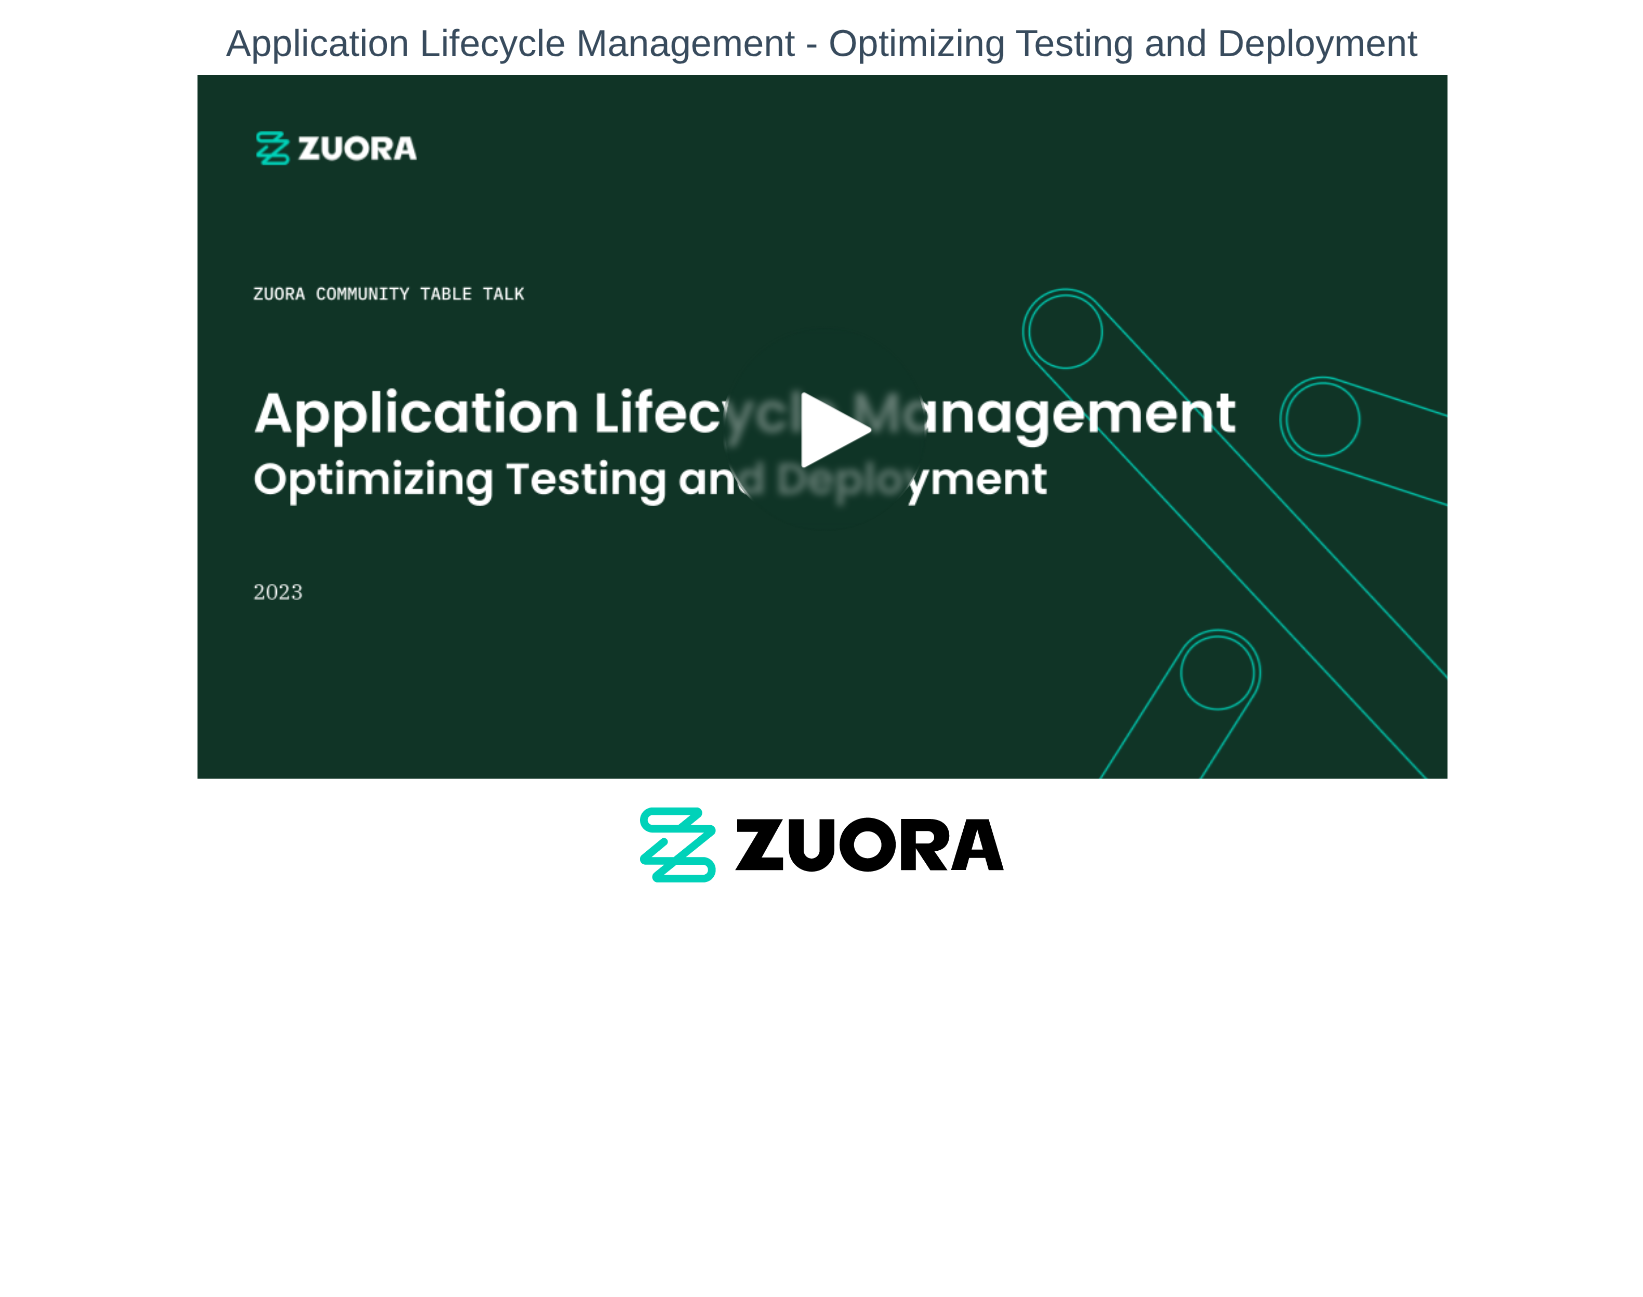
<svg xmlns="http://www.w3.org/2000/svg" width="1643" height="1297">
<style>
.a{font:37.5px Liberation Sans;fill:#384b5d}
</style>
<rect width="100%" height="100%" fill="#fff"/>
<image href="1.png" x="197" y="75" width="1251" height="704"/>
<image href="2.png" x="640" y="807" width="364" height="76"/>
<text class="a" x="226" y="56">Application Lifecycle Management - Optimizing Testing and Deployment</text>
</svg>
